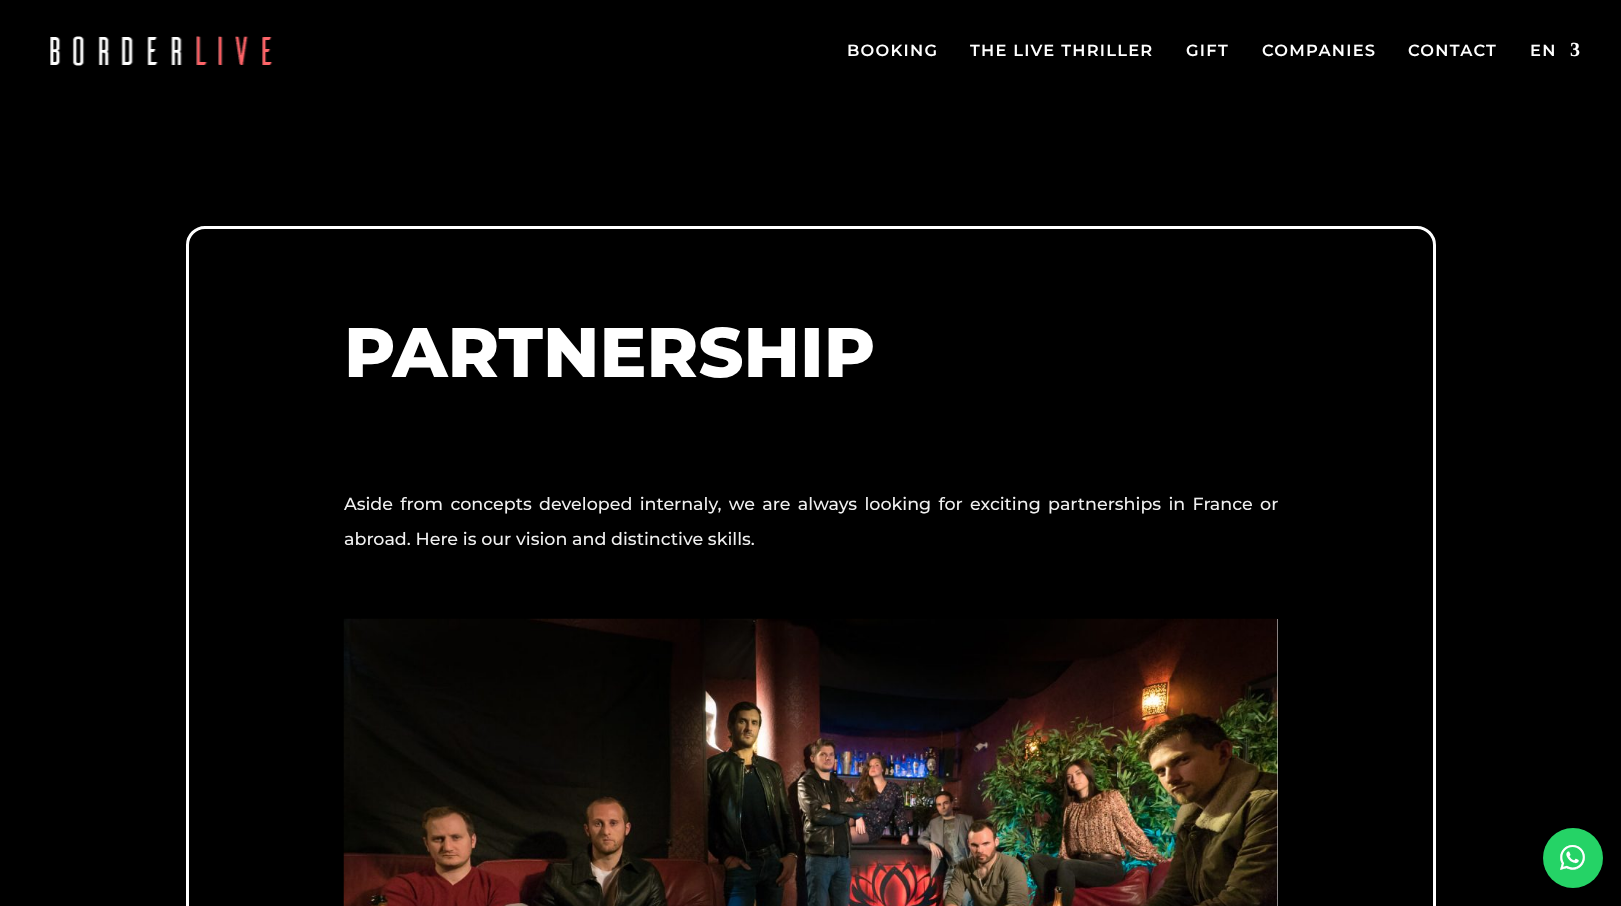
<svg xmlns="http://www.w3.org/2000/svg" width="1621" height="906">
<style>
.a{font:600 16.25px Montserrat;letter-spacing:1.25px;fill:#fff}
.b{font:bold 20px Liberation Serif;letter-spacing:1.25px;fill:#fff}
.c{font:800 70px Montserrat;fill:#fff}
.d{font:500 17.5px Montserrat;fill:#f0f0f0}
</style>
<rect width="100%" height="100%" fill="#000"/>
<image href="1.png" x="50" y="36" width="223" height="30"/>
<rect fill="none" stroke="#fff" stroke-width="3" x="187.5" y="227.5" width="1247" height="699" rx="17.5"/>
<path fill="#fff" d="M1277 619h1v287H1277z"/>
<image href="2.png" x="343" y="618" width="935" height="288"/>
<circle fill="#25d366" cx="1573" cy="858" r="30"/>
<image href="3.png" x="1560" y="845" width="25" height="25"/>
<text class="a" x="847" y="56">BOOKING</text>
<text class="a" x="970" y="56">THE LIVE THRILLER</text>
<text class="a" x="1186" y="56">GIFT</text>
<text class="a" x="1262" y="56">COMPANIES</text>
<text class="a" x="1408" y="56">CONTACT</text>
<text class="a" x="1530" y="56">EN</text>
<text class="b" x="1570" y="56">3</text>
<text class="c" x="344" y="377">PARTNERSHIP</text>
<text class="d" x="344" y="510" word-spacing="2.6">Aside from concepts developed internaly, we are always looking for exciting partnerships in France or</text>
<text class="d" x="344" y="545">abroad. Here is our vision and distinctive skills.</text>
</svg>
